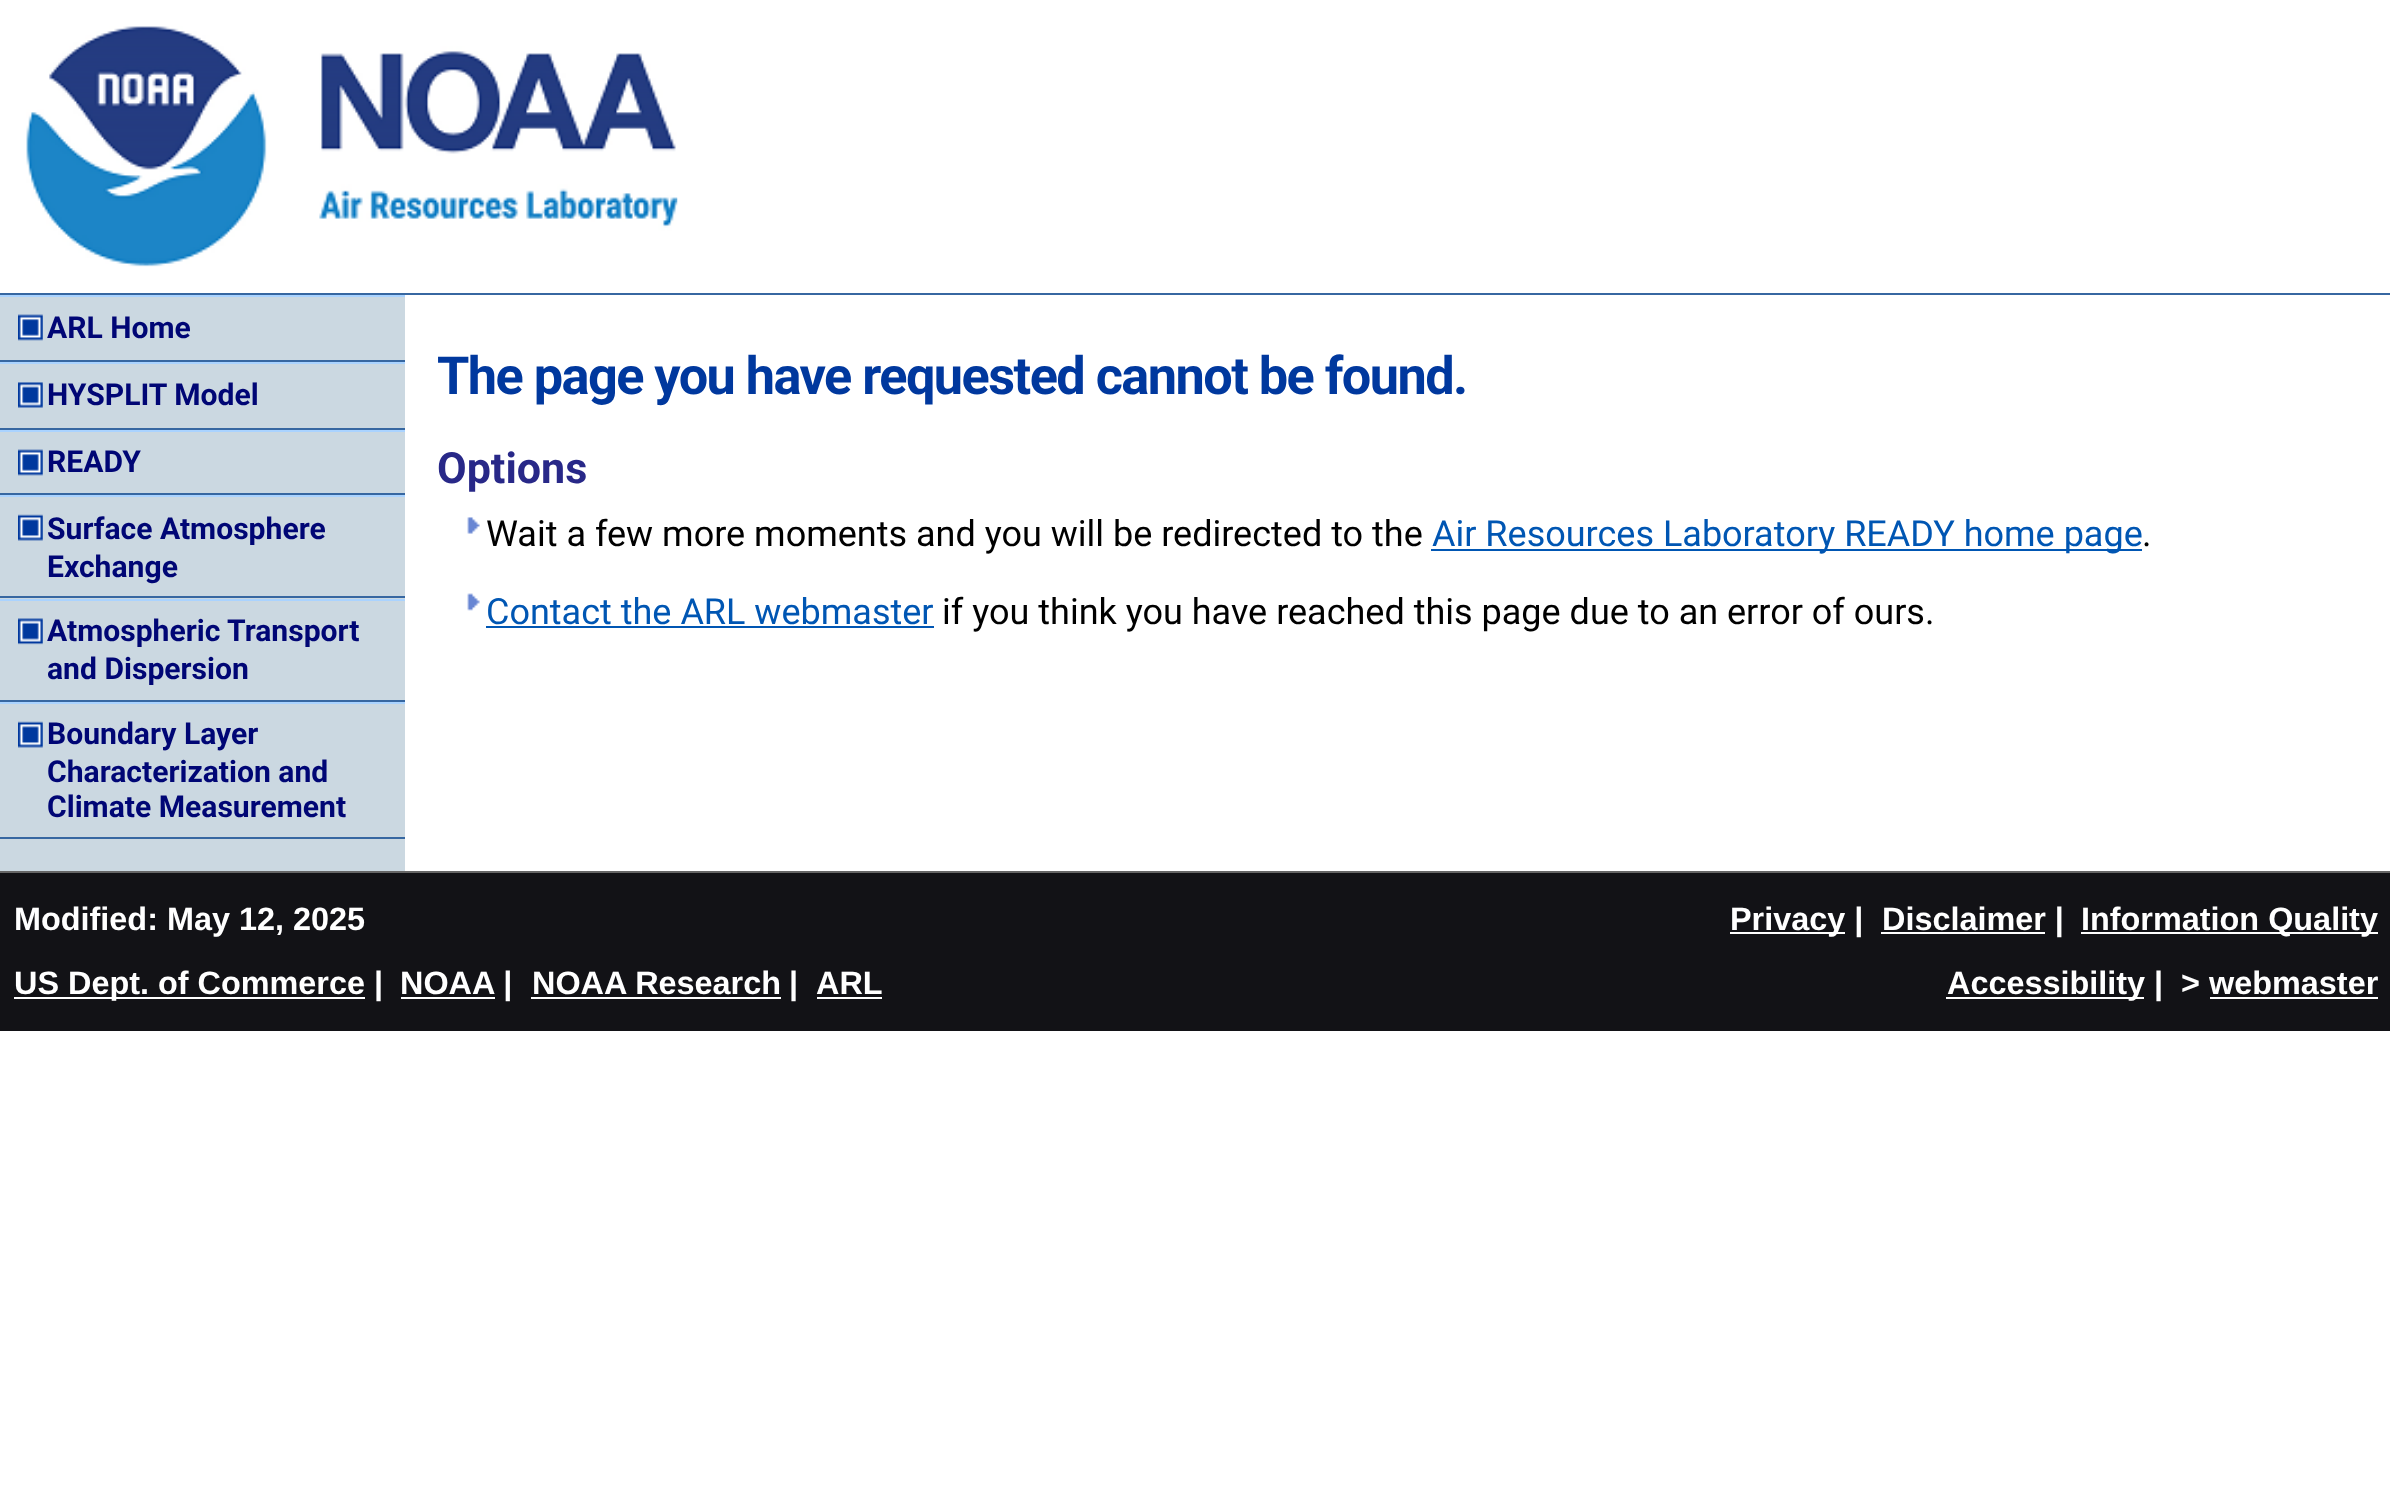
<svg xmlns="http://www.w3.org/2000/svg" width="2390" height="1500">
<style>
.a{font:bold 30.1px Roboto;fill:#000675}
.b{font:bold 52.25px Roboto;letter-spacing:-1.55px;fill:#00389e}
.c{font:bold 43px Roboto;fill:#282888}
.d{font:36px Roboto;fill:#000}
.e{font:36px Roboto;fill:#0056b3}
.f{font:bold 32.4px Liberation Sans;fill:#fff}
</style>
<rect width="100%" height="100%" fill="#fff"/>
<path fill="#3767a1" d="M0 293h2390v2H0z"/>
<image href="1.png" x="26" y="26" width="652" height="241"/>
<path fill="#cbd8e1" d="M0 297h405v574H0z"/>
<path fill="#aad3ff" d="M0 295h405v2H0z"/>
<path fill="#3767a1" d="M0 360h405v2H0z"/>
<image href="2.png" x="18" y="314" width="25" height="27"/>
<path fill="#aad3ff" d="M0 362h405v2H0z"/>
<path fill="#3767a1" d="M0 428h405v2H0z"/>
<image href="3.png" x="18" y="382" width="25" height="26"/>
<path fill="#aad3ff" d="M0 430h405v2H0z"/>
<path fill="#3767a1" d="M0 493h405v2H0z"/>
<image href="2.png" x="18" y="449" width="25" height="27"/>
<path fill="#aad3ff" d="M0 495h405v2H0z"/>
<path fill="#3767a1" d="M0 596h405v2H0z"/>
<image href="4.png" x="18" y="514" width="25" height="27"/>
<path fill="#aad3ff" d="M0 599h405v2H0z"/>
<path fill="#3767a1" d="M0 700h405v2H0z"/>
<image href="5.png" x="18" y="618" width="25" height="27"/>
<path fill="#aad3ff" d="M0 702h405v2H0z"/>
<path fill="#3767a1" d="M0 837h405v2H0z"/>
<image href="4.png" x="18" y="721" width="25" height="27"/>
<image href="6.png" x="467" y="517" width="13" height="17"/>
<path fill="#0056b3" d="M1431 549h711v2H1431z"/>
<image href="7.png" x="467" y="593" width="13" height="18"/>
<path fill="#0056b3" d="M486 626h448v2H486z"/>
<path fill="#121216" d="M0 873h2390v158H0z"/>
<path fill="#666" d="M0 871h2390v2H0z"/>
<path fill="#fff" d="M14 997h351v2H14z"/>
<path fill="#fff" d="M401 997h94v2H401z"/>
<path fill="#fff" d="M531 997h250v2H531z"/>
<path fill="#fff" d="M817 997h65v2H817z"/>
<path fill="#fff" d="M1730 932h115v2H1730z"/>
<path fill="#fff" d="M1881 932h164v2H1881z"/>
<path fill="#fff" d="M2081 932h297v2H2081z"/>
<path fill="#fff" d="M1946 997h198v2H1946z"/>
<path fill="#fff" d="M2210 997h168v2H2210z"/>
<text class="a" x="47" y="338">ARL Home</text>
<text class="a" x="47" y="405">HYSPLIT Model</text>
<text class="a" x="47" y="472">READY</text>
<text class="a" x="47" y="539">Surface Atmosphere</text>
<text class="a" x="47" y="577">Exchange</text>
<text class="a" x="47" y="641">Atmospheric Transport</text>
<text class="a" x="47" y="679">and Dispersion</text>
<text class="a" x="47" y="744">Boundary Layer</text>
<text class="a" x="47" y="782">Characterization and</text>
<text class="a" x="47" y="817">Climate Measurement</text>
<text class="b" x="437" y="394">The page you have requested cannot be found.</text>
<text class="c" x="437" y="483">Options</text>
<text class="d" x="486" y="546">Wait a few more moments and you will be redirected to the</text>
<text class="e" x="1432" y="546">Air Resources Laboratory READY home page</text>
<text class="d" x="2142" y="546">.</text>
<text class="e" x="486" y="624">Contact the ARL webmaster</text>
<text class="d" x="942" y="624">if you think you have reached this page due to an error of ours.</text>
<text class="f" x="14" y="930">Modified: May 12, 2025</text>
<text class="f" x="14" y="994">US Dept. of Commerce |</text>
<text class="f" x="400" y="994">NOAA |</text>
<text class="f" x="532" y="994">NOAA Research</text>
<text class="f" x="789" y="994">|</text>
<text class="f" x="816" y="994">ARL</text>
<text class="f" x="1730" y="930">Privacy |</text>
<text class="f" x="1882" y="930">Disclaimer |</text>
<text class="f" x="2081" y="930">Information Quality</text>
<text class="f" xml:space="preserve" x="1947" y="994">Accessibility |  &gt; webmaster</text>
</svg>
